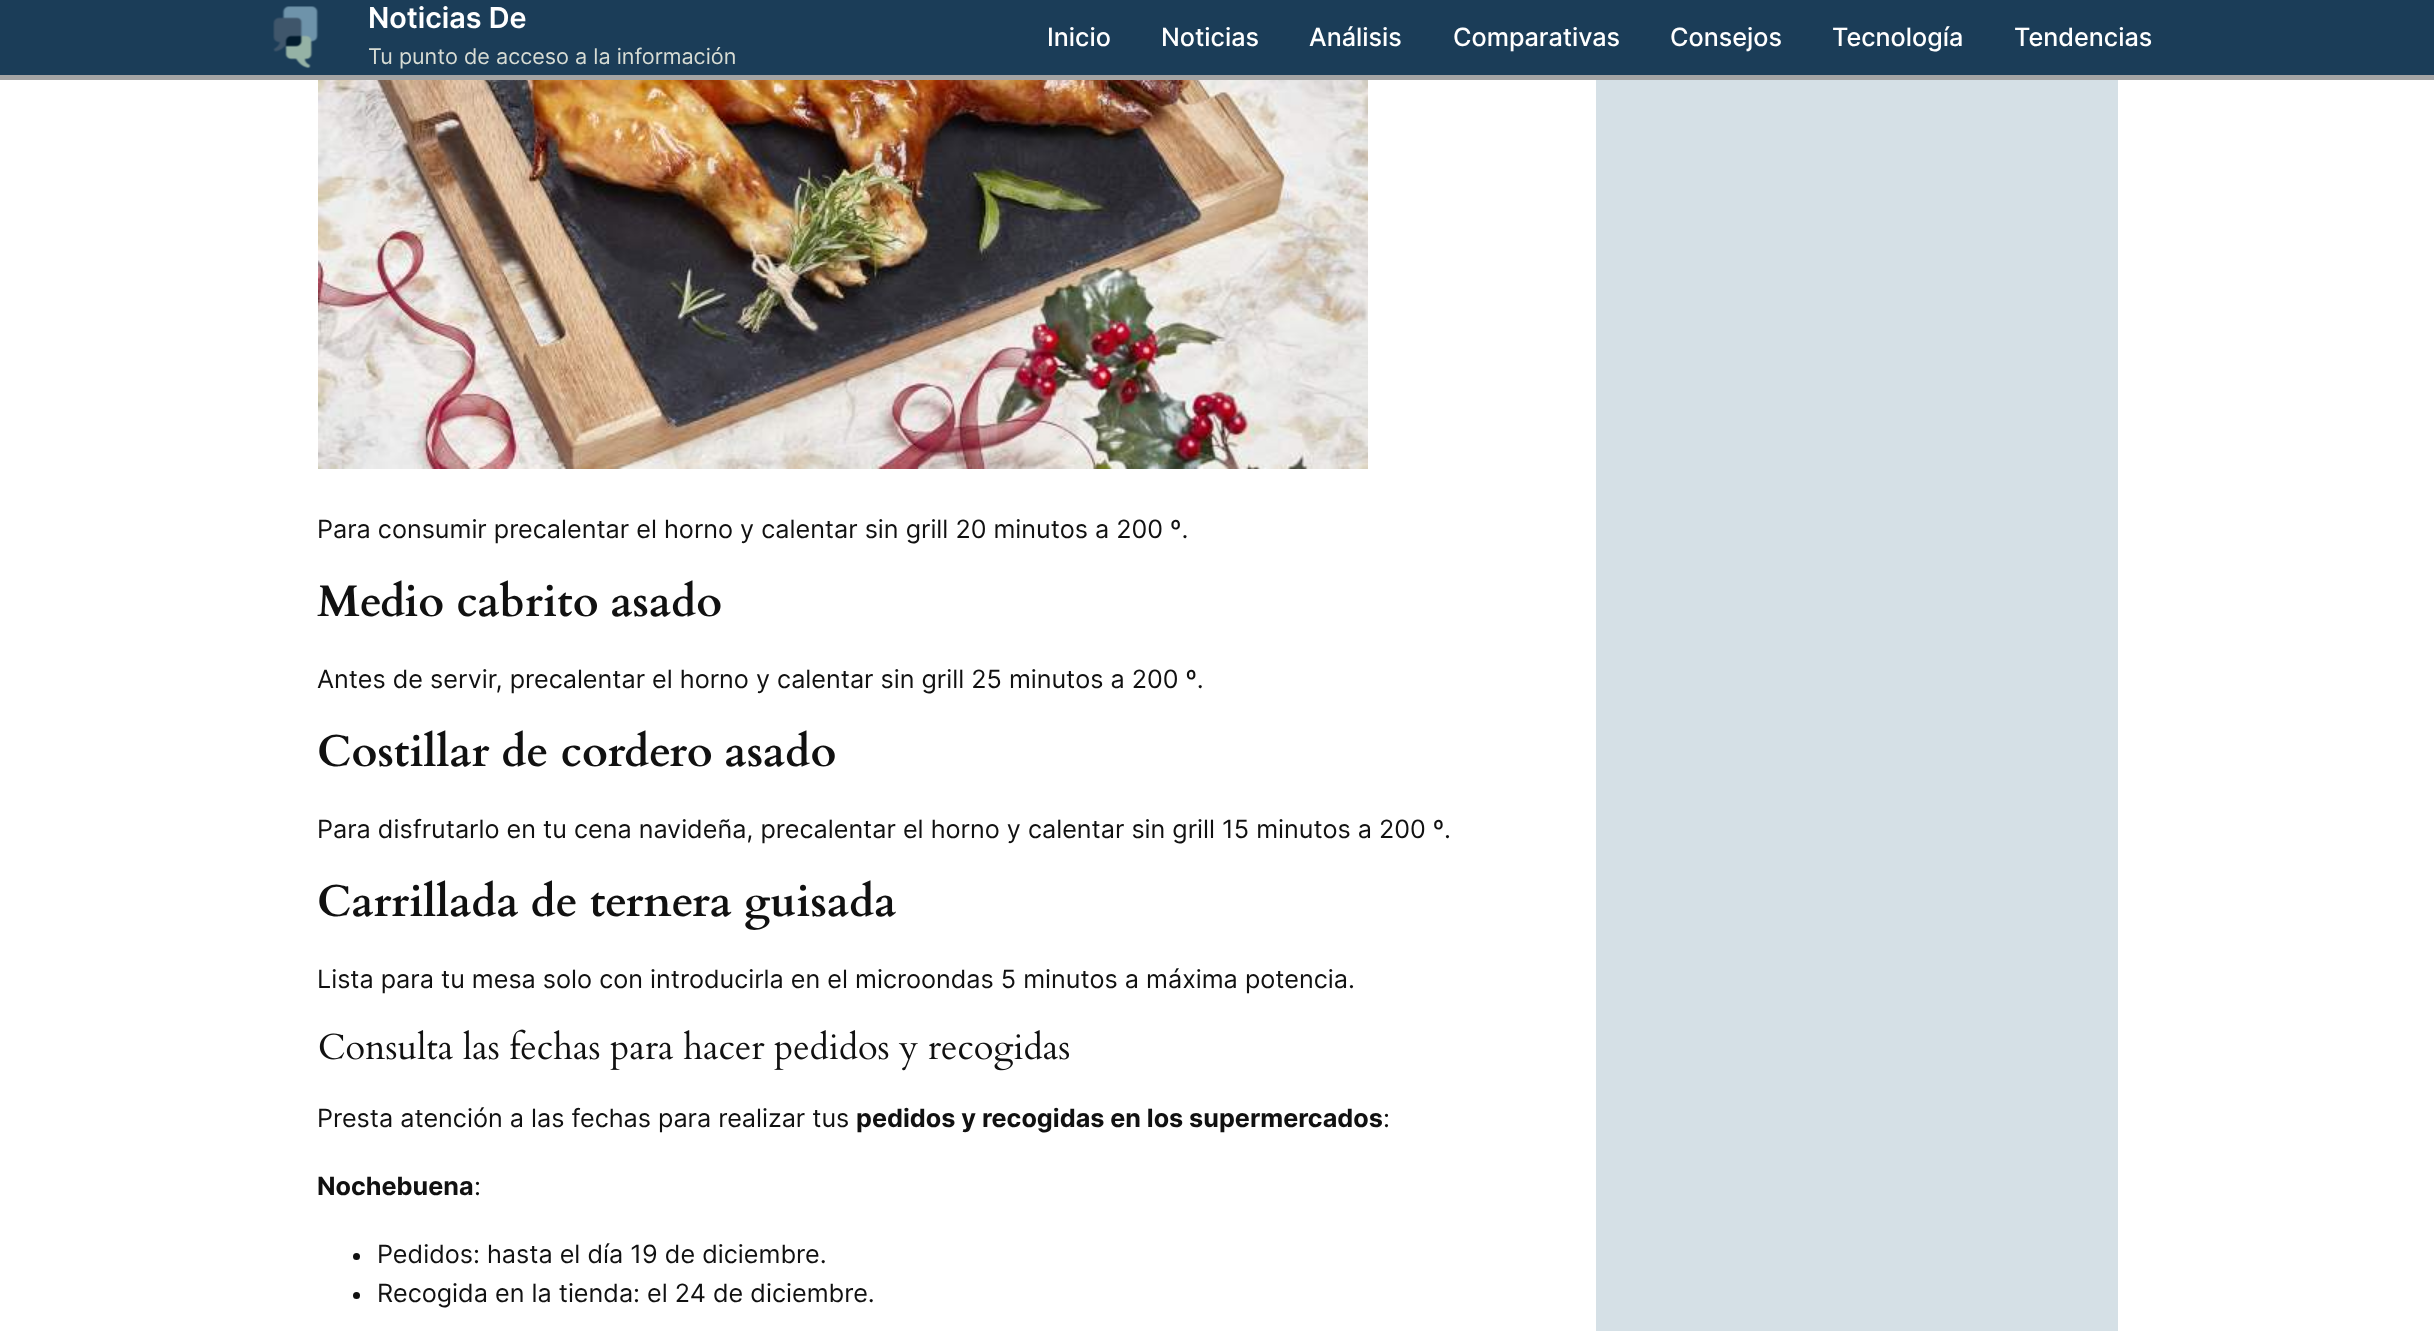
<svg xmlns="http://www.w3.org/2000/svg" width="2434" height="1331">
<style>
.a{font:600 28.75px Inter;fill:#fff}
.b{font:21.6px Inter;fill:#d7dcd4}
.c{font:500 25.2px Inter;fill:#fff}
.d{font:25.2px Inter;fill:#111}
.e{font:bold 44.4px Cardo;fill:#111}
.f{font:bold 25.2px Inter;fill:#111}
</style>
<rect width="100%" height="100%" fill="#fff"/>
<path fill="#1b3d58" d="M0 0h2434v75H0z"/>
<path fill="#a4a4a4" d="M0 75h2434v5H0z"/>
<image href="1.png" x="273" y="6" width="46" height="63"/>
<image href="2.png" x="318" y="80" width="1050" height="389"/>
<image href="3.png" x="319" y="1029" width="750" height="42"/>
<circle fill="#111" cx="356.5" cy="1256.5" r="3.5"/>
<circle fill="#111" cx="356.5" cy="1295.5" r="3.5"/>
<path fill="#d5e0e6" d="M1596 80h522v1251H1596z"/>
<text class="a" x="368" y="28">Noticias De</text>
<text class="b" x="368" y="64">Tu punto de acceso a la información</text>
<text class="c" x="1047" y="46">Inicio</text>
<text class="c" x="1161" y="46">Noticias</text>
<text class="c" x="1309" y="46">Análisis</text>
<text class="c" x="1453" y="46">Comparativas</text>
<text class="c" x="1670" y="46">Consejos</text>
<text class="c" x="1832" y="46">Tecnología</text>
<text class="c" x="2014" y="46">Tendencias</text>
<text class="d" x="317" y="538">Para consumir precalentar el horno y calentar sin grill 20 minutos a 200 º.</text>
<text class="e" x="317" y="616">Medio cabrito asado</text>
<text class="d" x="317" y="688">Antes de servir, precalentar el horno y calentar sin grill 25 minutos a 200 º.</text>
<text class="e" x="317" y="766">Costillar de cordero asado</text>
<text class="d" x="317" y="838">Para disfrutarlo en tu cena navideña, precalentar el horno y calentar sin grill 15 minutos a 200 º.</text>
<text class="e" x="317" y="916">Carrillada de ternera guisada</text>
<text class="d" x="317" y="988">Lista para tu mesa solo con introducirla en el microondas 5 minutos a máxima potencia.</text>
<text class="d" x="317" y="1127">Presta atención a las fechas para realizar tus</text>
<text class="f" x="856" y="1127">pedidos y recogidas en los supermercados</text>
<text class="d" x="1383" y="1127">:</text>
<text class="f" x="317" y="1195">Nochebuena</text>
<text class="d" x="474" y="1195">:</text>
<text class="d" x="377" y="1263">Pedidos: hasta el día 19 de diciembre.</text>
<text class="d" x="377" y="1302">Recogida en la tienda: el 24 de diciembre.</text>
</svg>
